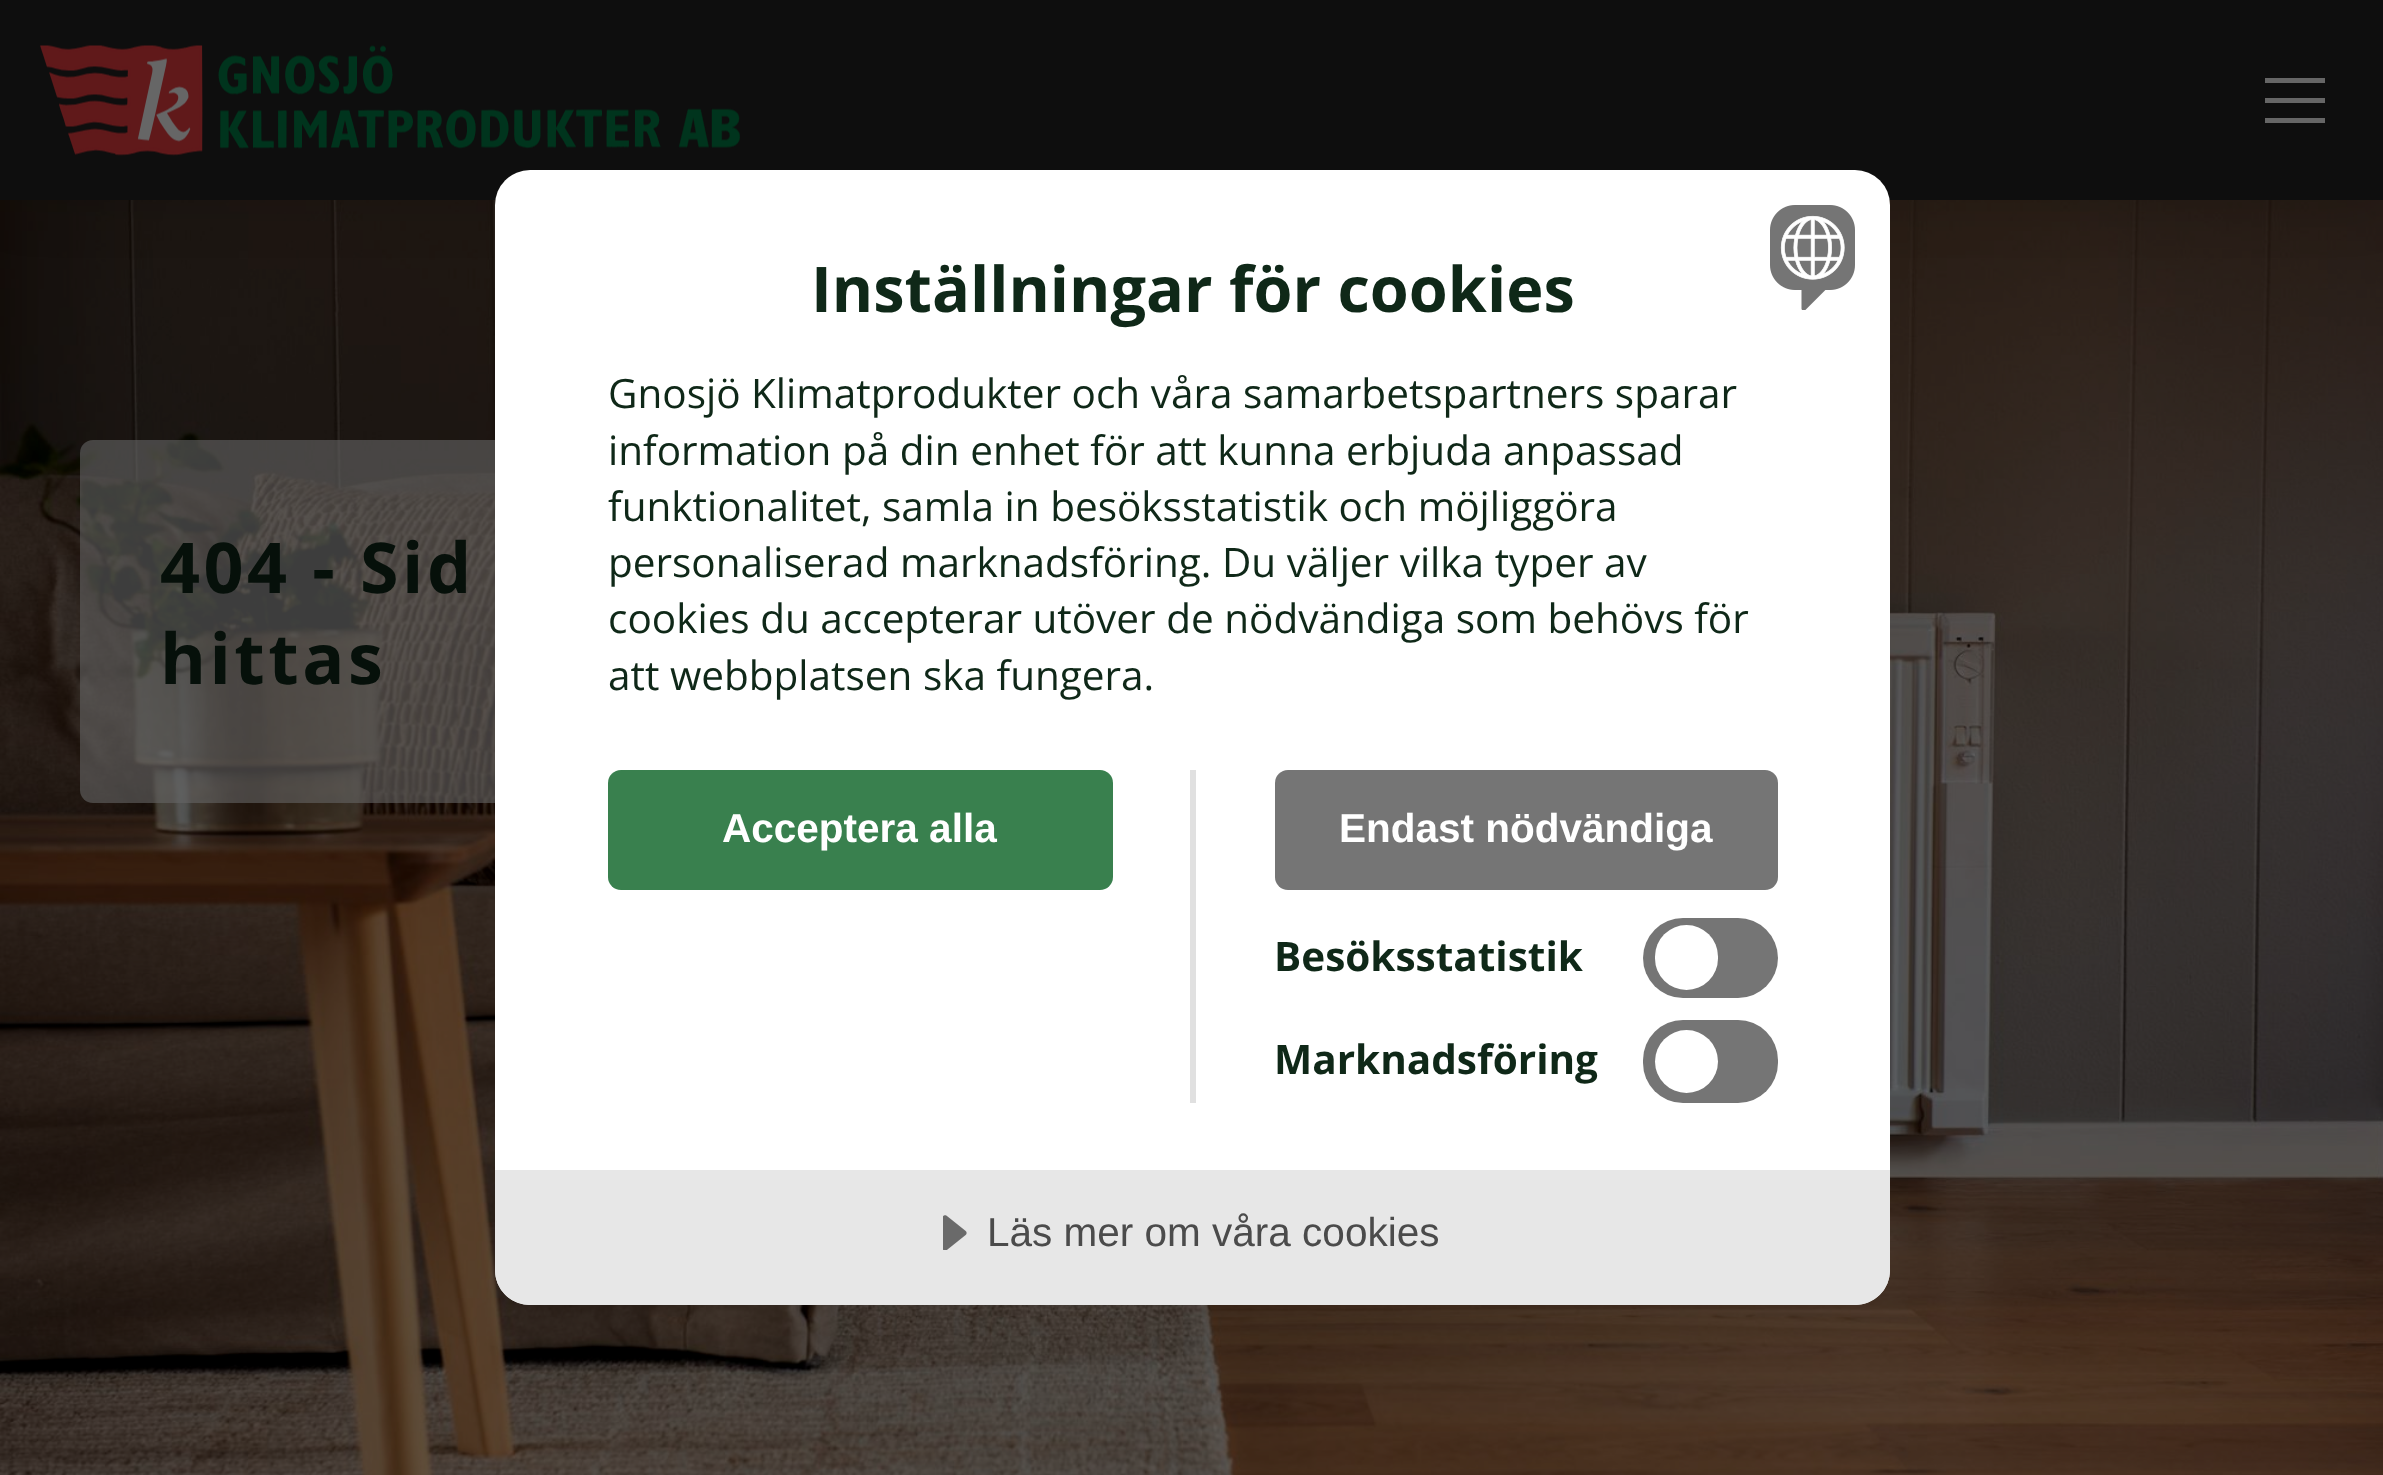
<svg xmlns="http://www.w3.org/2000/svg" width="2383" height="1475">
<style>
.a{font:bold 70px Open Sans;letter-spacing:3.5px;fill:#06100a}
.b{font:bold 63px Open Sans;fill:#0f2818}
.c{font:40.5px Open Sans;fill:#0f2818}
.d{font:bold 40.5px Liberation Sans;fill:#fff}
.e{font:bold 40.5px Open Sans;fill:#0f2818}
.f{font:40.5px Liberation Sans;fill:#4b4b4b}
</style>
<rect width="100%" height="100%" fill="#fff"/>
<image href="2.png" x="0" y="200" width="2383" height="1275"/>
<path fill="#0000001a" filter="blur(25px)" d="M0 10h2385v200H0z"/>
<path fill="#0e0e0e" d="M0 0h2383v200H0z"/>
<image href="1.png" x="40" y="45" width="700" height="111"/>
<path fill="#666" d="M2265 78h60v5H2265z"/>
<path fill="#666" d="M2265 98h60v5H2265z"/>
<path fill="#666" d="M2265 118h60v5H2265z"/>
<rect fill="#66666699" x="80" y="440" width="1075" height="363" rx="13"/>
<rect fill="#fff" x="495" y="170" width="1395" height="1135" rx="35"/>
<path fill="#e0e0e0" d="M1190 770h6v333H1190z"/>
<rect fill="#39804e" x="608" y="770" width="505" height="120" rx="13"/>
<rect fill="#757575" x="1275" y="770" width="503" height="120" rx="13"/>
<rect fill="#757575" x="1643" y="918" width="135" height="80" rx="40"/>
<rect fill="#fff" x="1655" y="925" width="63" height="65" rx="31.5"/>
<rect fill="#757575" x="1643" y="1020" width="135" height="83" rx="40"/>
<circle fill="#fff" cx="1686.5" cy="1061.5" r="31.5"/>
<image href="3.png" x="1770" y="205" width="85" height="105"/>
<path fill="#e7e7e7" d="M495 1170h1395v100c0 19.5-15.5 35-35 35h-1325c-19.5 0-35-15.5-35-35z"/>
<image href="4.png" x="943" y="1215" width="24" height="35"/>
<text class="a" x="160" y="593">404 - Sid</text>
<text class="a" x="160" y="684">hittas</text>
<text class="b" x="811" y="312">Inställningar för cookies</text>
<text class="c" x="608" y="408">Gnosjö Klimatprodukter och våra samarbetspartners sparar</text>
<text class="c" x="608" y="465">information på din enhet för att kunna erbjuda anpassad</text>
<text class="c" x="608" y="521">funktionalitet, samla in besöksstatistik och möjliggöra</text>
<text class="c" x="608" y="577">personaliserad marknadsföring. Du väljer vilka typer av</text>
<text class="c" x="608" y="633">cookies du accepterar utöver de nödvändiga som behövs för</text>
<text class="c" x="608" y="690">att webbplatsen ska fungera.</text>
<text class="d" x="722" y="842">Acceptera alla</text>
<text class="d" x="1339" y="842">Endast nödvändiga</text>
<text class="e" x="1274" y="971">Besöksstatistik</text>
<text class="e" x="1274" y="1074">Marknadsföring</text>
<text class="f" x="987" y="1246">Läs mer om våra cookies</text>
</svg>
